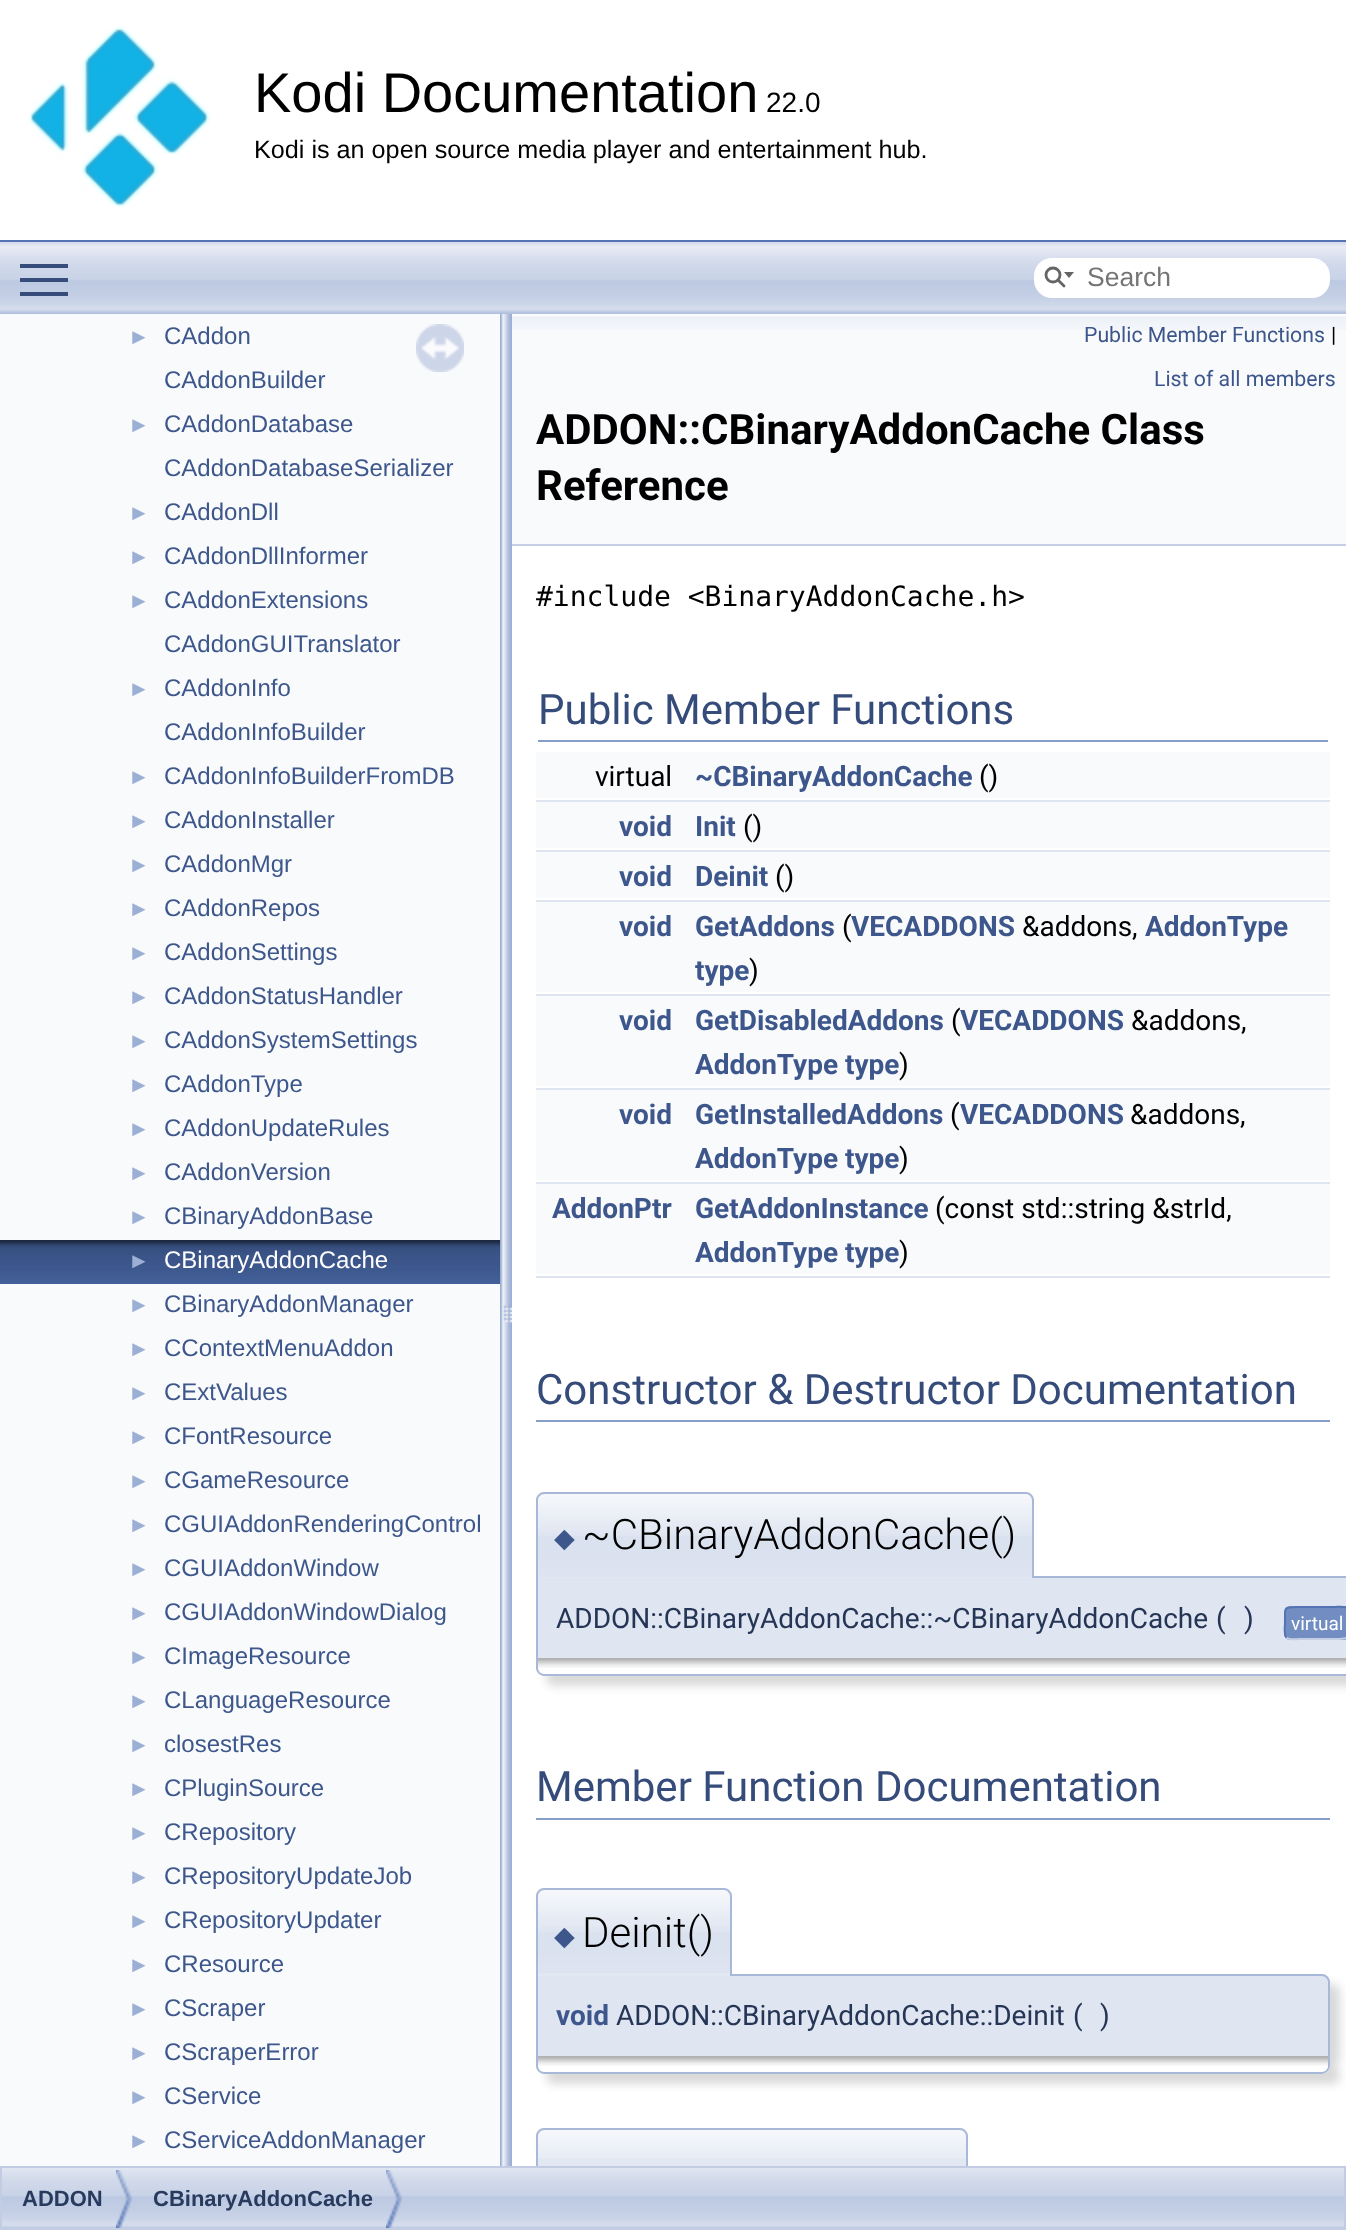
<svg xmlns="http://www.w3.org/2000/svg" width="1346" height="2230">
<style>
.a{font:56px Liberation Sans;fill:#000}
.b{font:28px Liberation Sans;fill:#000}
.c{font:25.2px Liberation Sans;fill:#000}
.d{font:26.5px Liberation Sans;fill:#757575}
.e{font:22px Liberation Sans;fill:#9cafd4}
.f{font:24px Liberation Sans;fill:#3d578c}
.g{font:24px Liberation Sans;fill:#fff}
.h{font:21.25px Roboto;fill:#3d578c}
.i{font:21.25px Roboto;fill:#000}
.j{font:bold 42px Roboto;fill:#000}
.k{font:28px DejaVu Sans Mono;fill:#000}
.l{font:42px Roboto;fill:#354c7b}
.m{font:28px Roboto;fill:#000}
.n{font:bold 28px Roboto;fill:#3d578c}
.o{font:27px DejaVu Sans;fill:#3d578c}
.p{font:300 42px Roboto;fill:#000}
.q{font:28px Roboto;fill:#253555}
.r{font:19px Roboto;fill:#fff}
.s{font:bold 22px Liberation Sans;fill:#283a5d}
</style>
<rect width="100%" height="100%" fill="#fff"/>
<path fill="#5373b4" d="M0 240h1346v2H0z"/>
<image href="1.png" x="29" y="26" width="181" height="181"/>
<image href="2.png" x="0" y="242" width="1346" height="72"/>
<path fill="#364d7c" d="M20 278h48v4H20z"/>
<path fill="#364d7c" d="M20 264h48v4H20z"/>
<path fill="#364d7c" d="M20 292h48v4H20z"/>
<rect fill="#fff" x="1034" y="258" width="296" height="40" rx="18"/>
<circle fill="none" stroke="#656565" stroke-width="2.8" cx="1053" cy="275" r="7"/>
<path fill="#656565" d="M1064 272l5 6l5-6z"/>
<path fill="none" stroke="#656565" stroke-width="2.8" stroke-linecap="round" d="M1058 280l6 6"/>
<path fill="#f9fafc" d="M0 314h500v1852H0z"/>
<image href="3.png" x="416" y="324" width="48" height="48"/>
<image href="4.png" x="0" y="1240" width="500" height="44"/>
<image href="5.png" x="500" y="314" width="12" height="1852"/>
<path fill="#f9fafc" d="M512 330h834v214H512z"/>
<image href="6.png" x="512" y="314" width="834" height="16"/>
<path fill="#c4cfe5" d="M512 544h834v2H512z"/>
<path fill="#879ecb" d="M538 740h790v2H538z"/>
<path fill="#f9fafc" d="M536 752h794v46H536z"/>
<path fill="#dee4f0" d="M536 800h794v2H536z"/>
<path fill="#f9fafc" d="M536 802h794v46H536z"/>
<path fill="#dee4f0" d="M536 850h794v2H536z"/>
<path fill="#f9fafc" d="M536 852h794v46H536z"/>
<path fill="#dee4f0" d="M536 900h794v2H536z"/>
<path fill="#f9fafc" d="M536 902h794v90H536z"/>
<path fill="#dee4f0" d="M536 994h794v2H536z"/>
<path fill="#f9fafc" d="M536 996h794v90H536z"/>
<path fill="#dee4f0" d="M536 1088h794v2H536z"/>
<path fill="#f9fafc" d="M536 1090h794v90H536z"/>
<path fill="#dee4f0" d="M536 1182h794v2H536z"/>
<path fill="#f9fafc" d="M536 1184h794v90H536z"/>
<path fill="#dee4f0" d="M536 1276h794v2H536z"/>
<path fill="#879ecb" d="M536 1420h794v2H536z"/>
<path fill="#dfe5f1" d="M538 1578h808v80H538z"/>
<path fill="#a8b8d9" fill-rule="evenodd" d="M536 1576h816c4 0 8 4 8 8v74h-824zm2 2h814c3 0 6 3 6 6v74h-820z"/>
<path fill="#e2e8f2" d="M544 1492h482c4.5 0 8 3.5 8 8v78h-498v-78c0-4.5 3.5-8 8-8z"/>
<image href="7.png" x="536" y="1494" width="498" height="83"/>
<path fill="#a8b8d9" fill-rule="evenodd" d="M544 1492h482c4 0 8 4 8 8v78h-498v-78c0-4 4-8 8-8zm0 2h482c3 0 6 3 6 6v78h-494v-78c0-3 3-6 6-6z"/>
<rect fill="#728dc1" x="1284" y="1606" width="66" height="34" rx="6"/>
<path fill="none" stroke="#c4cfe5" stroke-width="2" d="M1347.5 1608.5c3 3 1.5 11 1.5 14.5c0 16 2 16-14 16h-36c-2.5 0-9.5 1.5-12.5-1.5"/>
<path fill="none" stroke="#5373b4" stroke-width="2" d="M1286.5 1637.5c-3-3-1.5-11-1.5-14.5c0-16-2-16 14-16h36c2.5 0 9.5-1.5 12.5 1.5"/>
<rect fill="#00000026" filter="blur(5px)" x="546" y="1668" width="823" height="18" rx="8"/>
<path fill="#fff" d="M536 1658h810v18h-802c-4.5 0-8-3.5-8-8z"/>
<image href="8.png" x="538" y="1658" width="808" height="10"/>
<path fill="#a8b8d9" fill-rule="evenodd" d="M536 1658h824v10c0 4-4 8-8 8h-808c-4 0-8-4-8-8zm2 0h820v10c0 3-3 6-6 6h-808c-3 0-6-3-6-6z"/>
<path fill="#879ecb" d="M536 1818h794v2H536z"/>
<rect fill="#00000026" filter="blur(5px)" x="546" y="1984" width="794" height="82" rx="8"/>
<path fill="#dfe5f1" d="M536 1974h786c4.5 0 8 3.5 8 8v74h-794z"/>
<path fill="#a8b8d9" fill-rule="evenodd" d="M536 1974h786c4 0 8 4 8 8v74h-794zm2 2h784c3 0 6 3 6 6v74h-790z"/>
<path fill="#e2e8f2" d="M544 1888h180c4.5 0 8 3.5 8 8v80h-196v-80c0-4.5 3.5-8 8-8z"/>
<image href="9.png" x="536" y="1890" width="196" height="83"/>
<path fill="#a8b8d9" fill-rule="evenodd" d="M544 1888h180c4 0 8 4 8 8v80h-196v-80c0-4 4-8 8-8zm0 2h180c3 0 6 3 6 6v80h-192v-80c0-3 3-6 6-6z"/>
<rect fill="#00000026" filter="blur(5px)" x="546" y="2066" width="794" height="18" rx="8"/>
<path fill="#fff" d="M536 2056h794v10c0 4.5-3.5 8-8 8h-778c-4.5 0-8-3.5-8-8z"/>
<image href="10.png" x="538" y="2056" width="790" height="10"/>
<path fill="#a8b8d9" fill-rule="evenodd" d="M536 2056h794v10c0 4-4 8-8 8h-778c-4 0-8-4-8-8zm2 0h790v10c0 3-3 6-6 6h-778c-3 0-6-3-6-6z"/>
<path fill="#e2e8f2" d="M544 2128h416c4.5 0 8 3.5 8 8v30h-432v-30c0-4.5 3.5-8 8-8z"/>
<image href="11.png" x="536" y="2130" width="432" height="29"/>
<path fill="#a8b8d9" fill-rule="evenodd" d="M544 2128h416c4 0 8 4 8 8v78h-432v-78c0-4 4-8 8-8zm0 2h416c3 0 6 3 6 6v78h-428v-78c0-3 3-6 6-6z"/>
<image href="12.png" x="2" y="2168" width="1342" height="60"/>
<path fill="none" stroke="#c2cde4" stroke-width="2" d="M1 2167h1344v62H1z"/>
<image href="13.png" x="116" y="2170" width="16" height="58"/>
<image href="13.png" x="386" y="2170" width="16" height="58"/>
<text class="a" x="254" y="112">Kodi Documentation</text>
<text class="b" x="766" y="112">22.0</text>
<text class="c" x="254" y="158">Kodi is an open source media player and entertainment hub.</text>
<text class="d" x="1087" y="286">Search</text>
<text class="e" x="128" y="344">►</text>
<text class="f" x="164" y="344">CAddon</text>
<text class="f" x="164" y="388">CAddonBuilder</text>
<text class="e" x="128" y="432">►</text>
<text class="f" x="164" y="432">CAddonDatabase</text>
<text class="f" x="164" y="476">CAddonDatabaseSerializer</text>
<text class="e" x="128" y="520">►</text>
<text class="f" x="164" y="520">CAddonDll</text>
<text class="e" x="128" y="564">►</text>
<text class="f" x="164" y="564">CAddonDllInformer</text>
<text class="e" x="128" y="608">►</text>
<text class="f" x="164" y="608">CAddonExtensions</text>
<text class="f" x="164" y="652">CAddonGUITranslator</text>
<text class="e" x="128" y="696">►</text>
<text class="f" x="164" y="696">CAddonInfo</text>
<text class="f" x="164" y="740">CAddonInfoBuilder</text>
<text class="e" x="128" y="784">►</text>
<text class="f" x="164" y="784">CAddonInfoBuilderFromDB</text>
<text class="e" x="128" y="828">►</text>
<text class="f" x="164" y="828">CAddonInstaller</text>
<text class="e" x="128" y="872">►</text>
<text class="f" x="164" y="872">CAddonMgr</text>
<text class="e" x="128" y="916">►</text>
<text class="f" x="164" y="916">CAddonRepos</text>
<text class="e" x="128" y="960">►</text>
<text class="f" x="164" y="960">CAddonSettings</text>
<text class="e" x="128" y="1004">►</text>
<text class="f" x="164" y="1004">CAddonStatusHandler</text>
<text class="e" x="128" y="1048">►</text>
<text class="f" x="164" y="1048">CAddonSystemSettings</text>
<text class="e" x="128" y="1092">►</text>
<text class="f" x="164" y="1092">CAddonType</text>
<text class="e" x="128" y="1136">►</text>
<text class="f" x="164" y="1136">CAddonUpdateRules</text>
<text class="e" x="128" y="1180">►</text>
<text class="f" x="164" y="1180">CAddonVersion</text>
<text class="e" x="128" y="1224">►</text>
<text class="f" x="164" y="1224">CBinaryAddonBase</text>
<text class="e" x="128" y="1268">►</text>
<text class="g" x="164" y="1268">CBinaryAddonCache</text>
<text class="e" x="128" y="1312">►</text>
<text class="f" x="164" y="1312">CBinaryAddonManager</text>
<text class="e" x="128" y="1356">►</text>
<text class="f" x="164" y="1356">CContextMenuAddon</text>
<text class="e" x="128" y="1400">►</text>
<text class="f" x="164" y="1400">CExtValues</text>
<text class="e" x="128" y="1444">►</text>
<text class="f" x="164" y="1444">CFontResource</text>
<text class="e" x="128" y="1488">►</text>
<text class="f" x="164" y="1488">CGameResource</text>
<text class="e" x="128" y="1532">►</text>
<text class="f" x="164" y="1532">CGUIAddonRenderingControl</text>
<text class="e" x="128" y="1576">►</text>
<text class="f" x="164" y="1576">CGUIAddonWindow</text>
<text class="e" x="128" y="1620">►</text>
<text class="f" x="164" y="1620">CGUIAddonWindowDialog</text>
<text class="e" x="128" y="1664">►</text>
<text class="f" x="164" y="1664">CImageResource</text>
<text class="e" x="128" y="1708">►</text>
<text class="f" x="164" y="1708">CLanguageResource</text>
<text class="e" x="128" y="1752">►</text>
<text class="f" x="164" y="1752">closestRes</text>
<text class="e" x="128" y="1796">►</text>
<text class="f" x="164" y="1796">CPluginSource</text>
<text class="e" x="128" y="1840">►</text>
<text class="f" x="164" y="1840">CRepository</text>
<text class="e" x="128" y="1884">►</text>
<text class="f" x="164" y="1884">CRepositoryUpdateJob</text>
<text class="e" x="128" y="1928">►</text>
<text class="f" x="164" y="1928">CRepositoryUpdater</text>
<text class="e" x="128" y="1972">►</text>
<text class="f" x="164" y="1972">CResource</text>
<text class="e" x="128" y="2016">►</text>
<text class="f" x="164" y="2016">CScraper</text>
<text class="e" x="128" y="2060">►</text>
<text class="f" x="164" y="2060">CScraperError</text>
<text class="e" x="128" y="2104">►</text>
<text class="f" x="164" y="2104">CService</text>
<text class="e" x="128" y="2148">►</text>
<text class="f" x="164" y="2148">CServiceAddonManager</text>
<text class="h" x="1084" y="342">Public Member Functions</text>
<text class="i" x="1331" y="342">|</text>
<text class="h" x="1154" y="386">List of all members</text>
<text class="j" x="536" y="444">ADDON::CBinaryAddonCache Class</text>
<text class="j" x="536" y="500">Reference</text>
<text class="k" x="536" y="606">#include &lt;BinaryAddonCache.h&gt;</text>
<text class="l" x="538" y="724">Public Member Functions</text>
<text class="m" x="595" y="786">virtual</text>
<text class="n" x="695" y="786">~CBinaryAddonCache</text>
<text class="m" x="979" y="786">()</text>
<text class="n" x="619" y="836">void</text>
<text class="n" x="695" y="836">Init</text>
<text class="m" x="743" y="836">()</text>
<text class="n" x="619" y="886">void</text>
<text class="n" x="695" y="886">Deinit</text>
<text class="m" x="775" y="886">()</text>
<text class="n" x="619" y="936">void</text>
<text class="n" x="695" y="936">GetAddons</text>
<text class="m" x="842" y="936">(</text>
<text class="n" x="851" y="936">VECADDONS</text>
<text class="m" x="1022" y="936">&amp;addons,</text>
<text class="n" x="1145" y="936">AddonType</text>
<text class="n" x="695" y="980">type</text>
<text class="m" x="749" y="980">)</text>
<text class="n" x="619" y="1030">void</text>
<text class="n" x="695" y="1030">GetDisabledAddons</text>
<text class="m" x="951" y="1030">(</text>
<text class="n" x="960" y="1030">VECADDONS</text>
<text class="m" x="1131" y="1030">&amp;addons,</text>
<text class="n" x="695" y="1074">AddonType type</text>
<text class="m" x="899" y="1074">)</text>
<text class="n" x="619" y="1124">void</text>
<text class="n" x="695" y="1124">GetInstalledAddons</text>
<text class="m" x="950" y="1124">(</text>
<text class="n" x="960" y="1124">VECADDONS</text>
<text class="m" x="1130" y="1124">&amp;addons,</text>
<text class="n" x="695" y="1168">AddonType type</text>
<text class="m" x="899" y="1168">)</text>
<text class="n" x="552" y="1218">AddonPtr</text>
<text class="n" x="695" y="1218">GetAddonInstance</text>
<text class="m" x="935" y="1218">(const std::string &amp;strId,</text>
<text class="n" x="695" y="1262">AddonType type</text>
<text class="m" x="899" y="1262">)</text>
<text class="l" x="536" y="1404">Constructor &amp; Destructor Documentation</text>
<text class="o" x="554" y="1547">◆</text>
<text class="p" x="582" y="1549">~CBinaryAddonCache()</text>
<text class="q" x="556" y="1628">ADDON::CBinaryAddonCache::~CBinaryAddonCache</text>
<text class="q" x="1216" y="1628">(</text>
<text class="q" x="1244" y="1628">)</text>
<text class="r" x="1291" y="1630">virtual</text>
<text class="l" x="536" y="1801">Member Function Documentation</text>
<text class="o" x="554" y="1945">◆</text>
<text class="p" x="582" y="1947">Deinit()</text>
<text class="n" x="556" y="2025">void</text>
<text class="q" x="616" y="2025">ADDON::CBinaryAddonCache::Deinit</text>
<text class="q" x="1073" y="2025">(</text>
<text class="q" x="1100" y="2025">)</text>
<text class="s" x="22" y="2206">ADDON</text>
<text class="s" x="153" y="2206">CBinaryAddonCache</text>
</svg>
